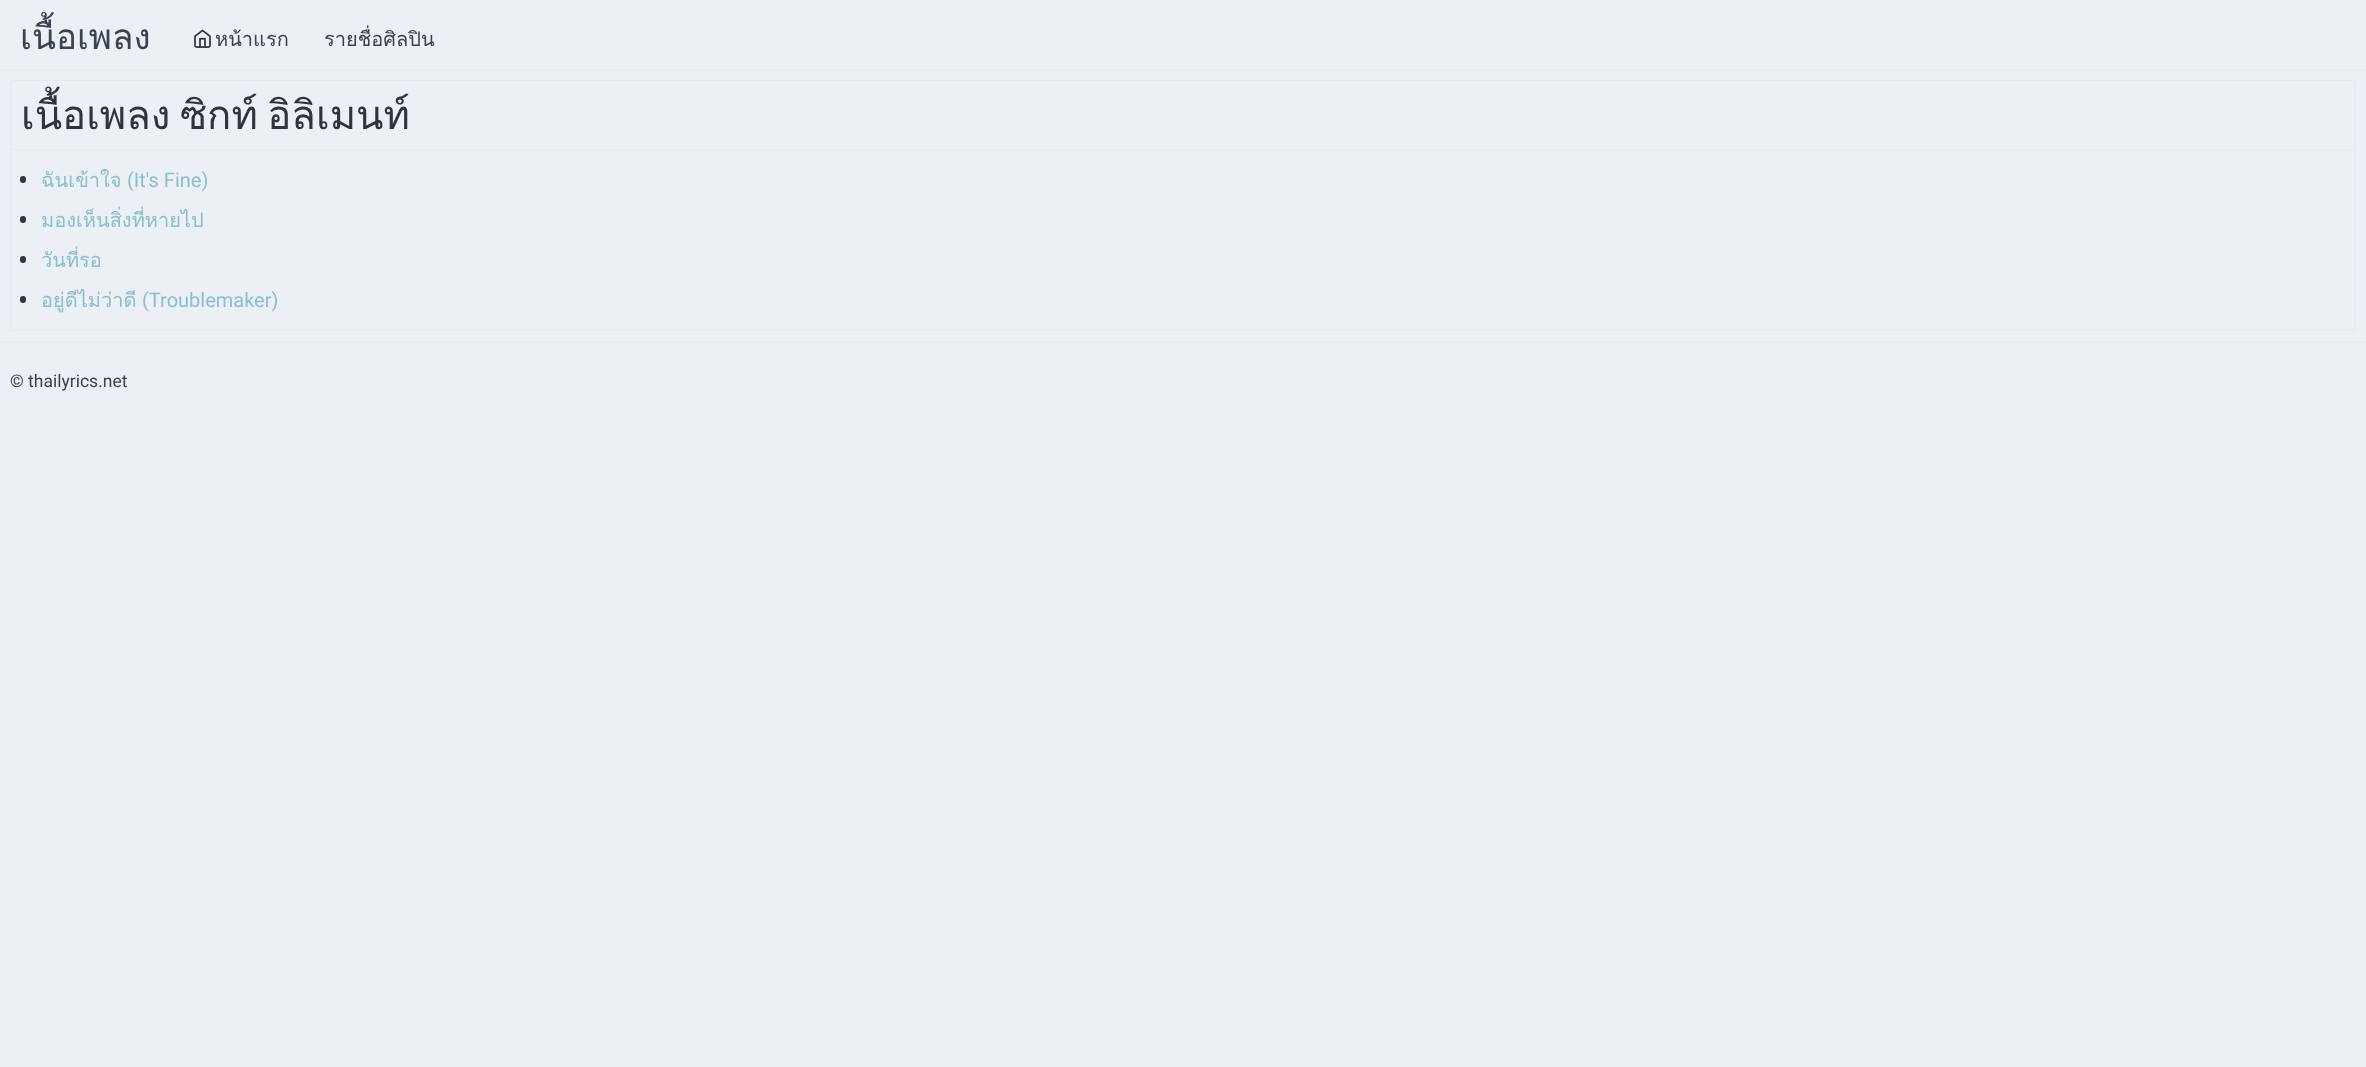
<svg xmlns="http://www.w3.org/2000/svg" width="2366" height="1067">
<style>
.a{font:35px Loma;fill:#3b4252}
.b{font:20px Loma;fill:#3b4252}
.c{font:40.1px Loma;fill:#2e3440}
.d{font:20px Loma;fill:#88c0d0}
.e{font:20px Roboto;fill:#88c0d0}
.f{font:17.5px Roboto;fill:#3b4252}
</style>
<rect width="100%" height="100%" fill="#eceff4"/>
<path fill="#e5e9f0" d="M0 69h2366v1H0z"/>
<image href="1.png" x="194" y="29" width="17" height="19"/>
<rect fill="none" stroke="#e5e9f0" x="10.5" y="80.5" width="2345" height="250" rx="2"/>
<path fill="#e5e9f0" d="M11 149h2344v1H11z"/>
<rect fill="#2e3440" x="20" y="176" width="6" height="7" rx="3"/>
<rect fill="#2e3440" x="20" y="216" width="6" height="7" rx="3"/>
<rect fill="#2e3440" x="20" y="256" width="6" height="7" rx="3"/>
<rect fill="#2e3440" x="20" y="296" width="6" height="7" rx="3"/>
<path fill="#e5e9f0" d="M0 341h2366v1H0z"/>
<text class="a" x="20" y="49">เนื้อเพลง</text>
<text class="b" x="215" y="46">หน้าแรก</text>
<text class="b" x="324" y="46">รายชื่อศิลปิน</text>
<text class="c" x="21" y="129" word-spacing="-4">เนื้อเพลง ซิกท์ อิลิเมนท์</text>
<text class="d" x="41" y="187">ฉันเข้าใจ</text>
<text class="e" x="127" y="187">(It's Fine)</text>
<text class="d" x="41" y="227">มองเห็นสิ่งที่หายไป</text>
<text class="d" x="41" y="267">วันที่รอ</text>
<text class="d" x="41" y="307">อยู่ดีไม่ว่าดี</text>
<text class="e" x="142" y="307">(Troublemaker)</text>
<text class="f" x="10" y="387">© thailyrics.net</text>
</svg>
